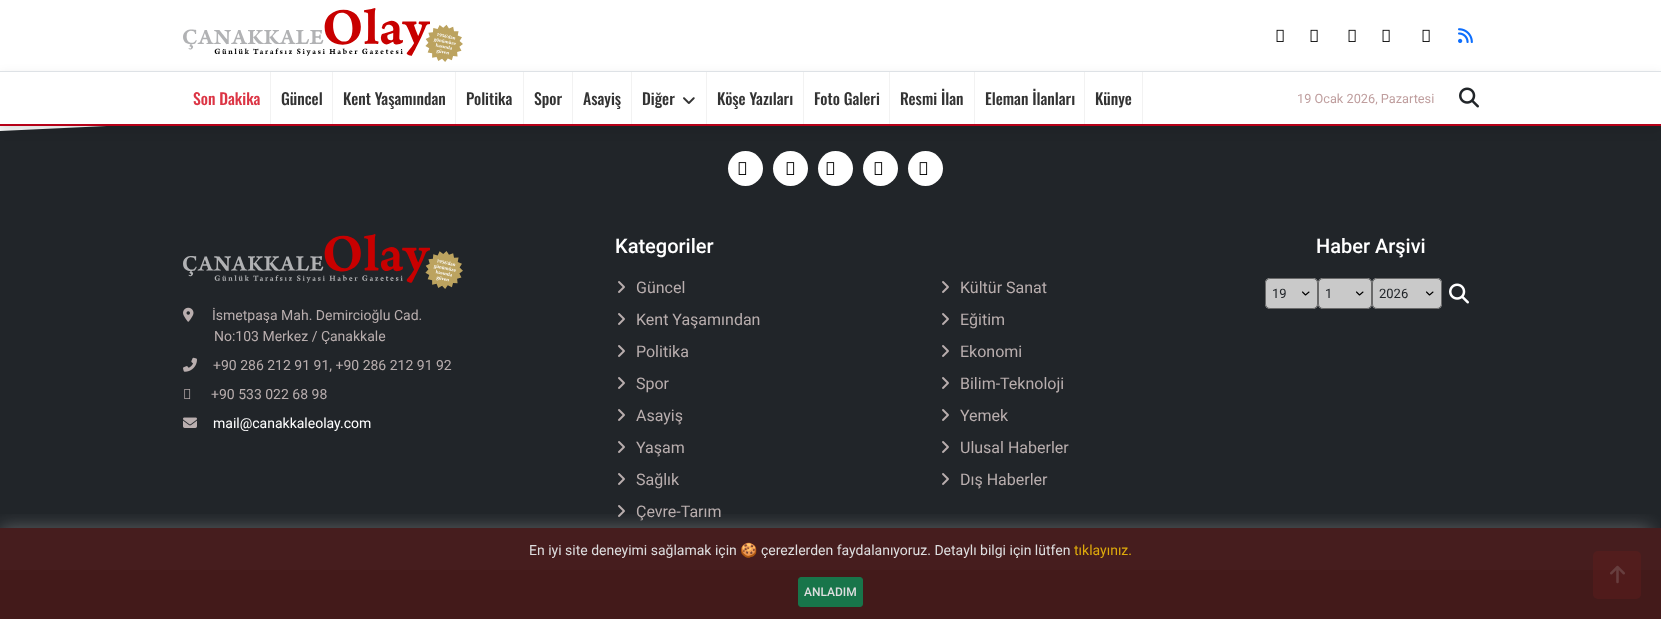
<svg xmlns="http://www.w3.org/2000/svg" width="1661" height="619">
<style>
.a{font:500 15.75px Oswald;fill:#dc3545}
.b{font:500 15.75px Oswald;fill:#333}
.c{font:12.75px Roboto;fill:#bf9e9e}
.d{font:500 20px Roboto;fill:#fff}
.e{font:16px Roboto;fill:#b9aeae}
.f{font:13px Roboto;fill:#212529}
.g{font:14px Roboto;fill:#b9aeae}
.h{font:14px Roboto;fill:#fff}
.i{font:14px Roboto;fill:#dededf}
.j{font:14px Noto Color Emoji;fill:#dededf}
.k{font:14px Roboto;fill:#deaa0c}
.l{font:500 12px Roboto;fill:#dededf}
</style>
<defs>
<clipPath id="clip1"><path d="M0 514h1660v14H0z"/></clipPath>
</defs>
<rect width="100%" height="100%" fill="#f7f7f7"/>
<path fill="#212529" d="M0 131v439h1661v-517z"/>
<path fill="#fff" d="M0 0h1661v71H0z"/>
<image href="1.png" x="183" y="8" width="280" height="54"/>
<image href="2.png" x="1276" y="29" width="8" height="13"/>
<image href="2.png" x="1310" y="29" width="8" height="13"/>
<image href="2.png" x="1348" y="29" width="8" height="13"/>
<image href="2.png" x="1382" y="29" width="8" height="13"/>
<image href="2.png" x="1422" y="29" width="8" height="13"/>
<image href="3.png" x="1458" y="28" width="15" height="15"/>
<path fill="#0000001a" filter="blur(6px)" d="M0 75h1661v55H0z"/>
<path fill="#fff" d="M0 72h1661v52H0z"/>
<path fill="#dee2e6" d="M0 71h1661v1H0z"/>
<path fill="#b60018" d="M0 124h1661v2H0z"/>
<path fill="#f2f2f2" d="M270 72h1v52H270z"/>
<path fill="#f2f2f2" d="M332 72h1v52H332z"/>
<path fill="#f2f2f2" d="M455 72h1v52H455z"/>
<path fill="#f2f2f2" d="M523 72h1v52H523z"/>
<path fill="#f2f2f2" d="M572 72h1v52H572z"/>
<path fill="#f2f2f2" d="M631 72h1v52H631z"/>
<path fill="#f2f2f2" d="M706 72h1v52H706z"/>
<image href="4.png" x="683" y="97" width="12" height="7"/>
<path fill="#f2f2f2" d="M803 72h1v52H803z"/>
<path fill="#f2f2f2" d="M889 72h1v52H889z"/>
<path fill="#f2f2f2" d="M974 72h1v52H974z"/>
<path fill="#f2f2f2" d="M1084 72h1v52H1084z"/>
<path fill="#f2f2f2" d="M1142 72h1v52H1142z"/>
<image href="5.png" x="1459" y="87" width="20" height="21"/>
<circle fill="#fff" cx="745.5" cy="168.5" r="17.5"/>
<image href="6.png" x="738" y="162" width="9" height="13"/>
<circle fill="#fff" cx="790.5" cy="168.5" r="17.5"/>
<image href="6.png" x="786" y="162" width="9" height="13"/>
<circle fill="#fff" cx="835.5" cy="168.5" r="17.5"/>
<image href="6.png" x="826" y="162" width="9" height="13"/>
<circle fill="#fff" cx="880.5" cy="168.5" r="17.5"/>
<image href="6.png" x="874" y="162" width="9" height="13"/>
<circle fill="#fff" cx="925.5" cy="168.5" r="17.5"/>
<image href="6.png" x="919" y="162" width="9" height="13"/>
<image href="7.png" x="618" y="281" width="7" height="12"/>
<image href="7.png" x="618" y="313" width="7" height="12"/>
<image href="7.png" x="618" y="345" width="7" height="12"/>
<image href="7.png" x="618" y="377" width="7" height="12"/>
<image href="7.png" x="618" y="409" width="7" height="12"/>
<image href="7.png" x="618" y="441" width="7" height="12"/>
<image href="7.png" x="618" y="473" width="7" height="12"/>
<image href="7.png" x="618" y="505" width="7" height="12"/>
<rect fill="#c9c9c9" x="1265" y="278" width="53" height="31" rx="5"/>
<path fill="none" stroke="#000" stroke-width="1.1" stroke-linecap="round" stroke-linejoin="round" d="M1302.5 292l3 3l3.5-3"/>
<rect fill="none" stroke="#696969" x="1265.5" y="278.5" width="52" height="30" rx="4.5"/>
<rect fill="#c9c9c9" x="1318" y="278" width="54" height="31" rx="5"/>
<path fill="none" stroke="#000" stroke-width="1.1" stroke-linecap="round" stroke-linejoin="round" d="M1356.5 292l3 3l3.5-3"/>
<rect fill="none" stroke="#696969" x="1318.5" y="278.5" width="53" height="30" rx="4.5"/>
<rect fill="#c9c9c9" x="1372" y="278" width="70" height="31" rx="5"/>
<path fill="none" stroke="#000" stroke-width="1.1" stroke-linecap="round" stroke-linejoin="round" d="M1426.5 292l3 3l3.5-3"/>
<rect fill="none" stroke="#696969" x="1372.5" y="278.5" width="69" height="30" rx="4.5"/>
<image href="8.png" x="1449" y="283" width="20" height="21"/>
<image href="9.png" x="183" y="234" width="280" height="55"/>
<image href="10.png" x="183" y="307" width="11" height="15"/>
<image href="11.png" x="183" y="357" width="14" height="15"/>
<image href="12.png" x="184" y="389" width="7" height="10"/>
<image href="13.png" x="183" y="417" width="14" height="11"/>
<image href="7.png" x="942" y="281" width="7" height="12"/>
<image href="7.png" x="942" y="313" width="7" height="12"/>
<image href="7.png" x="942" y="345" width="7" height="12"/>
<image href="7.png" x="942" y="377" width="7" height="12"/>
<image href="7.png" x="942" y="409" width="7" height="12"/>
<image href="7.png" x="942" y="441" width="7" height="12"/>
<image href="7.png" x="942" y="473" width="7" height="12"/>
<path fill="#111" d="M0 570h1661v49H0z"/>
<rect fill="#ec1d2466" x="1593" y="551" width="48" height="48" rx="5"/>
<image href="14.png" x="1610" y="565" width="15" height="19"/>
<g clip-path="url(#clip1)">
<path fill="#ffffff42" filter="blur(9px)" d="M0 527h1651v81H0z"/>
</g>
<path fill="#4c1c1cd9" d="M0 528h1661v91H0z"/>
<rect fill="#18754a" stroke="#18754a" x="798.5" y="577.5" width="64" height="29" rx="2.5"/>
<text class="a" x="193" y="105">Son Dakika</text>
<text class="b" x="281" y="105">Güncel</text>
<text class="b" x="343" y="105">Kent Yaşamından</text>
<text class="b" x="466" y="105">Politika</text>
<text class="b" x="534" y="105">Spor</text>
<text class="b" x="583" y="105">Asayiş</text>
<text class="b" x="642" y="105">Diğer</text>
<text class="b" x="717" y="105">Köşe Yazıları</text>
<text class="b" x="814" y="105">Foto Galeri</text>
<text class="b" x="900" y="105">Resmi İlan</text>
<text class="b" x="985" y="105">Eleman İlanları</text>
<text class="b" x="1095" y="105">Künye</text>
<text class="c" x="1297" y="103">19 Ocak 2026, Pazartesi</text>
<text class="d" x="615" y="253">Kategoriler</text>
<text class="e" x="636" y="293">Güncel</text>
<text class="e" x="636" y="325">Kent Yaşamından</text>
<text class="e" x="636" y="357">Politika</text>
<text class="e" x="636" y="389">Spor</text>
<text class="e" x="636" y="421">Asayiş</text>
<text class="e" x="636" y="453">Yaşam</text>
<text class="e" x="636" y="485">Sağlık</text>
<text class="e" x="636" y="517">Çevre-Tarım</text>
<text class="d" x="1316" y="253">Haber Arşivi</text>
<text class="f" x="1272" y="298">19</text>
<text class="f" x="1325" y="298">1</text>
<text class="f" x="1379" y="298">2026</text>
<text class="g" x="212" y="320">İsmetpaşa Mah. Demircioğlu Cad.</text>
<text class="g" x="214" y="341">No:103 Merkez / Çanakkale</text>
<text class="g" x="213" y="370">+90 286 212 91 91, +90 286 212 91 92</text>
<text class="g" x="211" y="399">+90 533 022 68 98</text>
<text class="h" x="213" y="428">mail@canakkaleolay.com</text>
<text class="e" x="960" y="293">Kültür Sanat</text>
<text class="e" x="960" y="325">Eğitim</text>
<text class="e" x="960" y="357">Ekonomi</text>
<text class="e" x="960" y="389">Bilim-Teknoloji</text>
<text class="e" x="960" y="421">Yemek</text>
<text class="e" x="960" y="453">Ulusal Haberler</text>
<text class="e" x="960" y="485">Dış Haberler</text>
<text class="i" x="529" y="555">En iyi site deneyimi sağlamak için</text>
<text class="j" x="740" y="555">🍪</text>
<text class="i" x="761" y="555">çerezlerden faydalanıyoruz. Detaylı bilgi için lütfen</text>
<text class="k" x="1074" y="555">tıklayınız.</text>
<text class="l" x="804" y="596">ANLADIM</text>
</svg>
